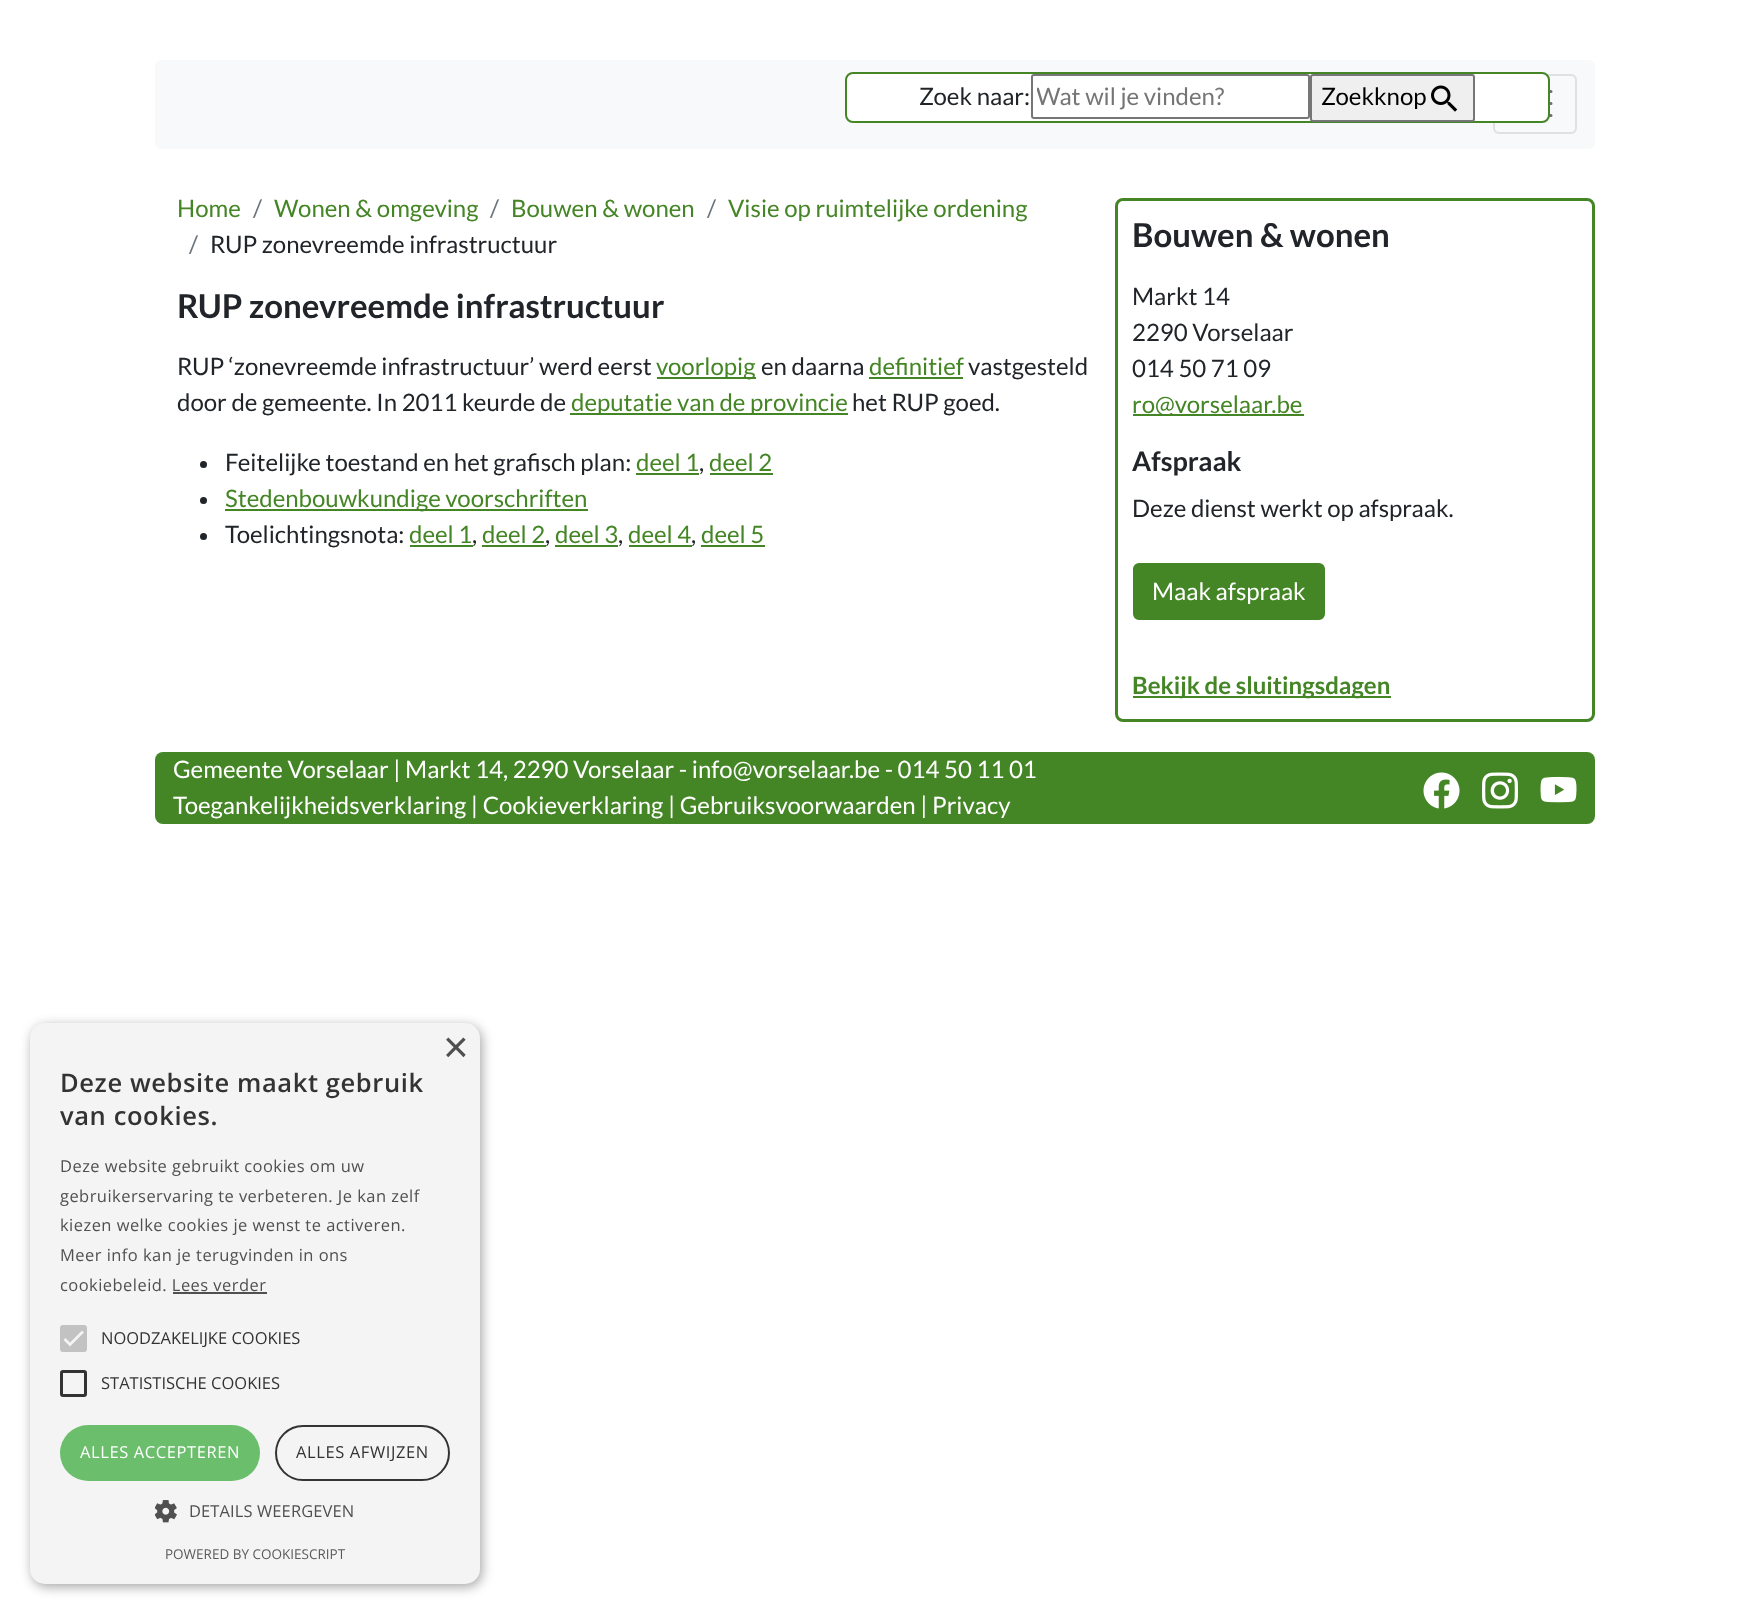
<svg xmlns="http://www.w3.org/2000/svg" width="1748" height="1613">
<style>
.a{font:24px Lato;fill:#212529}
.b{font:24px Lato;fill:#757575}
.c{font:24px Lato;fill:#000}
.d{font:24px Lato;fill:#448525}
.e{font:24px Lato;fill:#6c757d}
.f{font:bold 33px Lato;fill:#212529}
.g{font:bold 27px Lato;fill:#212529}
.h{font:24px Lato;fill:#fff}
.i{font:bold 24px Lato;fill:#448525}
.j{font:44px Liberation Sans;fill:#505050}
.k{font:600 25.5px Open Sans;letter-spacing:0.6px;fill:#333}
.l{font:16.5px Open Sans;letter-spacing:0.45px;fill:#505050}
.m{font:16.5px Open Sans;fill:#333}
.n{font:16.5px Open Sans;letter-spacing:0.6px;fill:#fff}
.o{font:16.5px Open Sans;letter-spacing:0.6px;fill:#333}
.p{font:16.5px Open Sans;letter-spacing:0.1px;fill:#505050}
.q{font:13.5px Open Sans;fill:#5a5a5a}
</style>
<defs>
<clipPath id="clip1"><path d="M1037 81h244v29H1037z"/></clipPath>
</defs>
<rect width="100%" height="100%" fill="#fff"/>
<rect fill="#f8f9fa" x="155" y="60" width="1440" height="89" rx="6"/>
<rect fill="none" stroke="#dfe0e1" stroke-width="2" x="1494" y="75" width="82" height="58" rx="5"/>
<path fill="none" stroke="#707071" stroke-width="3" stroke-linecap="round" d="M1518 91.5h33m-33 12h33m-33 12h33"/>
<rect fill="#fff" stroke="#448525" stroke-width="2" x="846" y="73" width="703" height="49" rx="7"/>
<rect fill="none" stroke="#767676" stroke-width="2" x="1032" y="75" width="277" height="43" rx="2"/>
<rect fill="#efefef" stroke="#767676" stroke-width="2" x="1311" y="75" width="163" height="46" rx="2"/>
<image href="1.png" x="1431" y="85" width="27" height="27"/>
<path fill="#448525" d="M657 377h99v2H657z"/>
<path fill="#448525" d="M869 377h94v2H869z"/>
<path fill="#448525" d="M570 413h278v2H570z"/>
<circle fill="#212529" cx="203.5" cy="464.5" r="3.5"/>
<path fill="#448525" d="M636 473h63v2H636z"/>
<path fill="#448525" d="M710 473h63v2H710z"/>
<circle fill="#212529" cx="203.5" cy="500.5" r="3.5"/>
<path fill="#448525" d="M225 509h363v2H225z"/>
<circle fill="#212529" cx="203.5" cy="536.5" r="3.5"/>
<path fill="#448525" d="M410 545h63v2H410z"/>
<path fill="#448525" d="M482 545h64v2H482z"/>
<path fill="#448525" d="M555 545h63v2H555z"/>
<path fill="#448525" d="M629 545h63v2H629z"/>
<path fill="#448525" d="M701 545h64v2H701z"/>
<rect fill="none" stroke="#448525" stroke-width="3" x="1116.5" y="199.5" width="477" height="521" rx="6.5"/>
<path fill="#448525" d="M1133 414h171v2H1133z"/>
<rect fill="#448525" stroke="#448525" stroke-width="2" x="1134" y="564" width="190" height="55" rx="5"/>
<path fill="#448525" d="M1133 696h258v2H1133z"/>
<rect fill="#448525" x="155" y="752" width="1440" height="72" rx="8"/>
<image href="2.png" x="1423" y="772" width="37" height="37"/>
<image href="3.png" x="1482" y="772" width="36" height="37"/>
<image href="4.png" x="1540" y="776" width="37" height="27"/>
<rect fill="#00000059" filter="blur(6px)" x="32" y="1026" width="450" height="561" rx="15"/>
<rect fill="#f4f4f4" x="30" y="1023" width="450" height="561" rx="15"/>
<path fill="#505050" d="M173 1292h94v2H173z"/>
<rect fill="#c2c2c2" x="60" y="1325" width="27" height="27" rx="3"/>
<path fill="none" stroke="#f4f4f4" stroke-width="2.7" d="M64.5 1339l5.5 5.5l13-13"/>
<rect fill="none" stroke="#333" stroke-width="3" x="61.5" y="1371.5" width="24" height="24" rx="1.5"/>
<rect fill="#6bbe6b" x="60" y="1425" width="200" height="56" rx="28"/>
<rect fill="none" stroke="#333" stroke-width="2" x="276" y="1426" width="173" height="54" rx="27"/>
<image href="5.png" x="155" y="1500" width="22" height="23"/>
<text class="a" x="919" y="105">Zoek naar:</text>
<g clip-path="url(#clip1)">
<text class="b" x="1036" y="105">Wat wil je vinden?</text>
</g>
<text class="c" x="1321" y="105">Zoekknop</text>
<text class="d" x="177" y="217">Home</text>
<text class="e" x="253" y="217">/</text>
<text class="d" x="274" y="217">Wonen &amp; omgeving</text>
<text class="e" x="490" y="217">/</text>
<text class="d" x="511" y="217">Bouwen &amp; wonen</text>
<text class="e" x="707" y="217">/</text>
<text class="d" x="728" y="217">Visie op ruimtelijke ordening</text>
<text class="e" x="189" y="253">/</text>
<text class="a" x="210" y="253">RUP zonevreemde infrastructuur</text>
<text class="f" x="177" y="318">RUP zonevreemde infrastructuur</text>
<text class="a" x="177" y="375">RUP ‘zonevreemde infrastructuur’ werd eerst</text>
<text class="d" x="656" y="375">voorlopig</text>
<text class="a" x="761" y="375">en daarna</text>
<text class="d" x="869" y="375">definitief</text>
<text class="a" x="968" y="375">vastgesteld</text>
<text class="a" x="177" y="411">door de gemeente. In 2011 keurde de</text>
<text class="d" x="571" y="411">deputatie van de provincie</text>
<text class="a" x="852" y="411">het RUP goed.</text>
<text class="a" x="225" y="471">Feitelijke toestand en het grafisch plan:</text>
<text class="d" x="636" y="471">deel 1</text>
<text class="d" x="709" y="471">deel 2</text>
<text class="a" x="699" y="471">,</text>
<text class="d" x="225" y="507">Stedenbouwkundige voorschriften</text>
<text class="a" x="225" y="543">Toelichtingsnota:</text>
<text class="d" x="409" y="543">deel 1</text>
<text class="d" x="482" y="543">deel 2</text>
<text class="d" x="555" y="543">deel 3</text>
<text class="d" x="628" y="543">deel 4</text>
<text class="d" x="701" y="543">deel 5</text>
<text class="a" x="472" y="543">,</text>
<text class="a" x="545" y="543">,</text>
<text class="a" x="618" y="543">,</text>
<text class="a" x="691" y="543">,</text>
<text class="f" x="1132" y="247">Bouwen &amp; wonen</text>
<text class="a" x="1132" y="305">Markt 14</text>
<text class="a" x="1132" y="341">2290 Vorselaar</text>
<text class="a" x="1132" y="377">014 50 71 09</text>
<text class="d" x="1132" y="413">ro@vorselaar.be</text>
<text class="g" x="1132" y="471">Afspraak</text>
<text class="a" x="1132" y="517">Deze dienst werkt op afspraak.</text>
<text class="h" x="1152" y="600">Maak afspraak</text>
<text class="i" x="1132" y="694">Bekijk de sluitingsdagen</text>
<text class="h" x="173" y="778">Gemeente Vorselaar | Markt 14, 2290 Vorselaar - info@vorselaar.be - 014 50 11 01</text>
<text class="h" x="173" y="814">Toegankelijkheidsverklaring | Cookieverklaring | Gebruiksvoorwaarden | Privacy</text>
<text class="j" x="443" y="1062">×</text>
<text class="k" x="60" y="1092">Deze website maakt gebruik</text>
<text class="k" x="60" y="1125">van cookies.</text>
<text class="l" x="60" y="1172">Deze website gebruikt cookies om uw</text>
<text class="l" x="60" y="1202">gebruikerservaring te verbeteren. Je kan zelf</text>
<text class="l" x="60" y="1231">kiezen welke cookies je wenst te activeren.</text>
<text class="l" x="60" y="1261">Meer info kan je terugvinden in ons</text>
<text class="l" x="60" y="1291">cookiebeleid. Lees verder</text>
<text class="m" x="101" y="1344">NOODZAKELIJKE COOKIES</text>
<text class="m" x="101" y="1389">STATISTISCHE COOKIES</text>
<text class="n" x="80" y="1458">ALLES ACCEPTEREN</text>
<text class="o" x="296" y="1458">ALLES AFWIJZEN</text>
<text class="p" x="189" y="1517">DETAILS WEERGEVEN</text>
<text class="q" x="165" y="1559">POWERED BY COOKIESCRIPT</text>
</svg>
